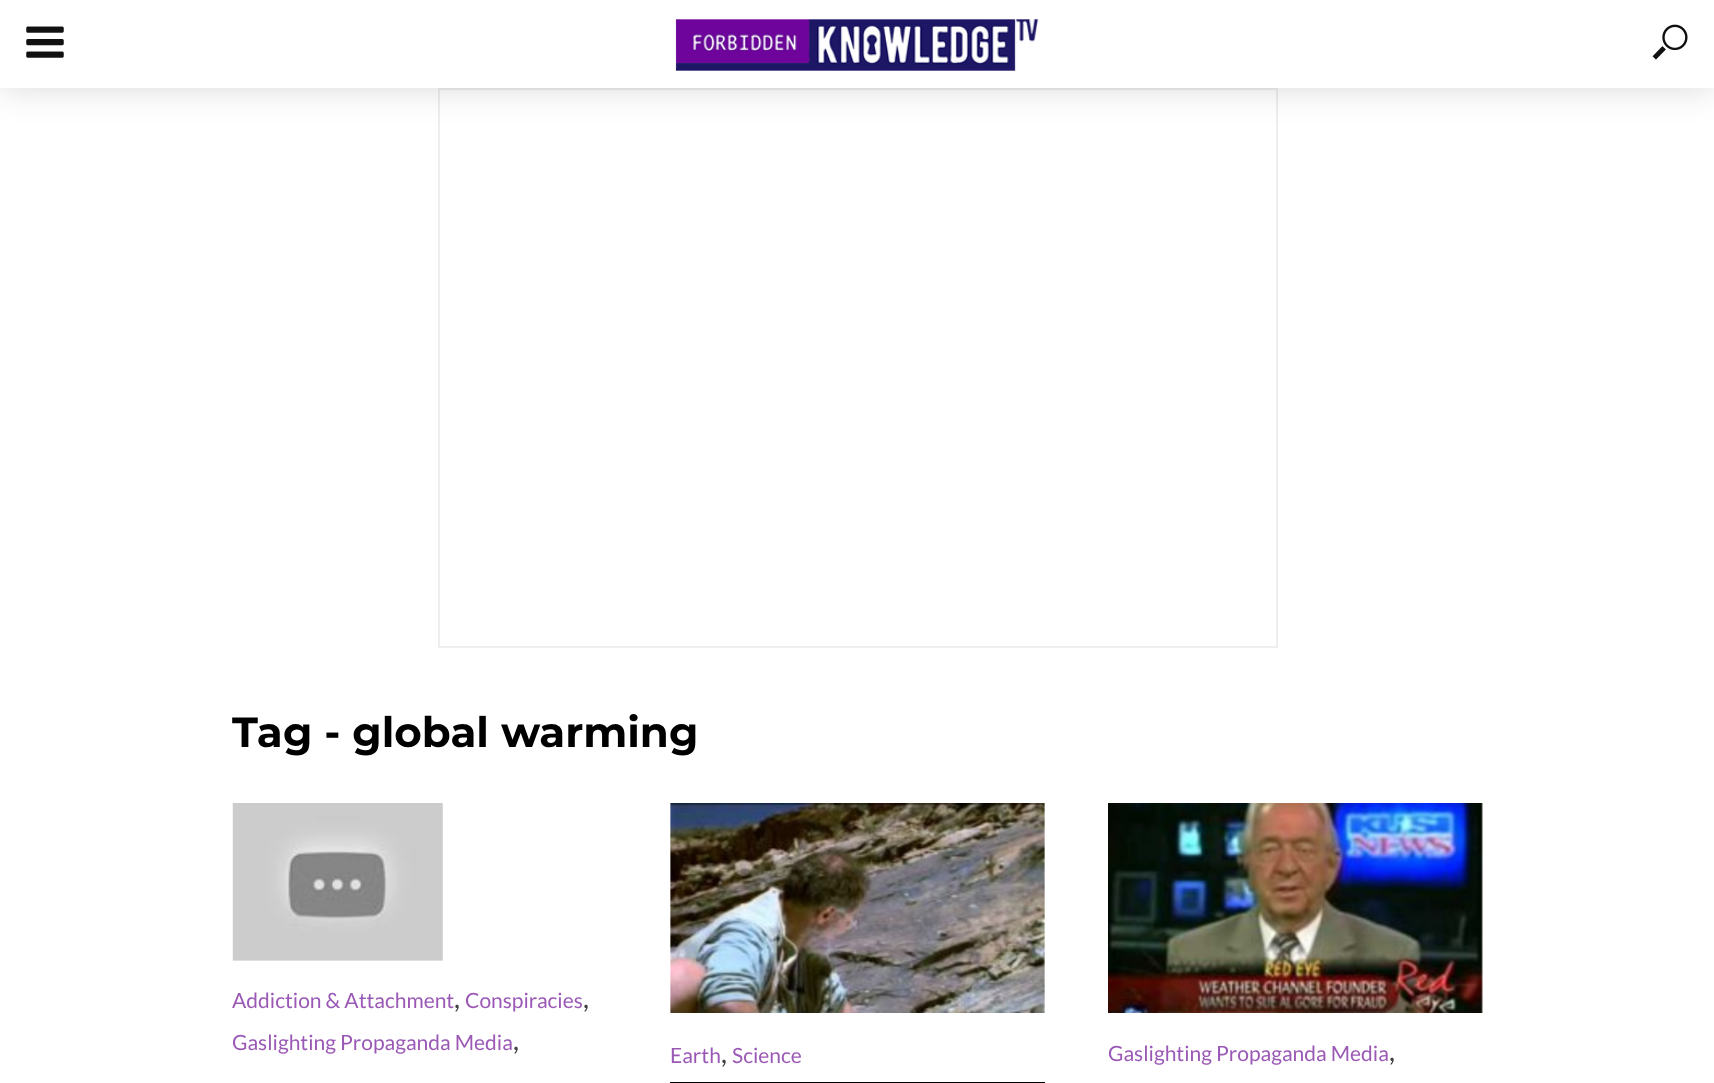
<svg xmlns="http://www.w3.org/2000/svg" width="1714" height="1083">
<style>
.a{font:bold 42px Montserrat;fill:#000}
.b{font:21px Lato;fill:#9b59b6}
.c{font:28px Lato;fill:#424242}
</style>
<rect width="100%" height="100%" fill="#fff"/>
<path fill="none" stroke="#eee" stroke-width="2" d="M439 89h838v558H439z"/>
<path fill="#00000026" filter="blur(17.5px)" d="M0 0h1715v88H0z"/>
<path fill="#fff" d="M0 0h1714v88H0z"/>
<image href="1.png" x="26" y="26" width="38" height="32"/>
<image href="2.png" x="675" y="19" width="364" height="52"/>
<image href="3.png" x="1652" y="24" width="36" height="36"/>
<image href="4.png" x="232" y="803" width="211" height="158"/>
<image href="5.png" x="670" y="803" width="375" height="210"/>
<path fill="#000" d="M670 1082h375v1H670z"/>
<image href="6.png" x="1108" y="803" width="375" height="210"/>
<text class="a" x="232" y="747">Tag - global warming</text>
<text class="b" x="232" y="1008">Addiction &amp; Attachment</text>
<text class="c" x="454" y="1008">,</text>
<text class="b" x="465" y="1008">Conspiracies</text>
<text class="c" x="583" y="1008">,</text>
<text class="b" x="232" y="1050">Gaslighting Propaganda Media</text>
<text class="c" x="513" y="1050">,</text>
<text class="b" x="670" y="1063">Earth</text>
<text class="c" x="721" y="1063">,</text>
<text class="b" x="732" y="1063">Science</text>
<text class="b" x="1108" y="1061">Gaslighting Propaganda Media</text>
<text class="c" x="1389" y="1061">,</text>
</svg>
